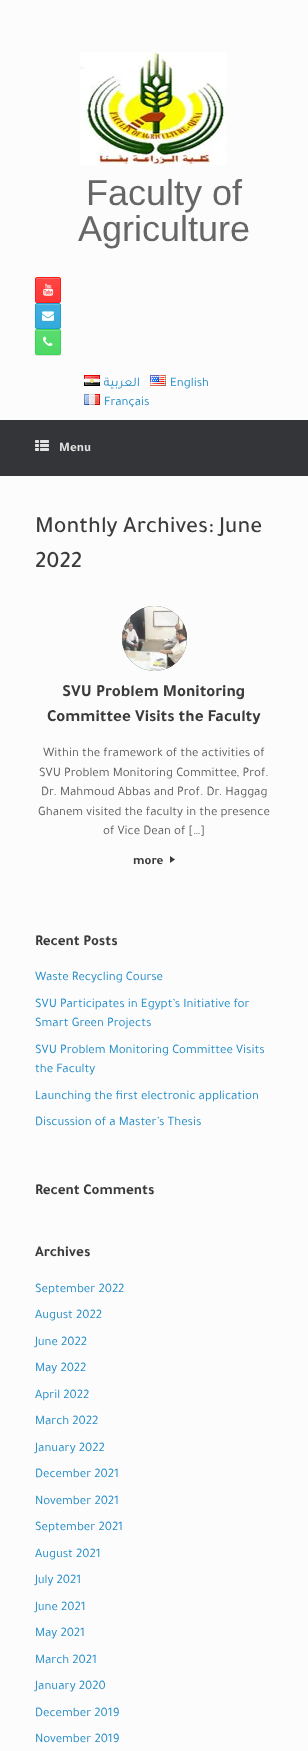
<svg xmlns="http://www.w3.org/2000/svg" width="308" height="1751">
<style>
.a{font:36px Liberation Sans;fill:#666}
.b{font:13px Tajawal;direction:rtl;fill:#248cc8}
.c{font:13px Tajawal;fill:#248cc8}
.d{font:bold 13px Tajawal;fill:#e2e2e2}
.e{font:500 23.5px Tajawal;fill:#3b3b3b}
.f{font:bold 17px Tajawal;fill:#3b3b3b}
.g{font:13px Tajawal;fill:#5e5e5e}
.h{font:bold 13px Tajawal;fill:#3b3b3b}
.i{font:bold 15px Tajawal;fill:#3b3b3b}
</style>
<defs>
<clipPath id="clip1"><rect x="35" y="277" width="26" height="26" rx="2"/></clipPath>
<linearGradient id="g1" gradientUnits="userSpaceOnUse" x1="48" y1="302" x2="48" y2="278"><stop offset="0" stop-color="#ff3635"/><stop offset="1" stop-color="#ff4544"/></linearGradient>
<clipPath id="clip2"><rect x="35" y="303" width="26" height="26" rx="2"/></clipPath>
<linearGradient id="g2" gradientUnits="userSpaceOnUse" x1="48" y1="328" x2="48" y2="304"><stop offset="0" stop-color="#34aadc"/><stop offset="1" stop-color="#41afde"/></linearGradient>
<clipPath id="clip3"><rect x="35" y="329" width="26" height="26" rx="2"/></clipPath>
<linearGradient id="g3" gradientUnits="userSpaceOnUse" x1="48" y1="354" x2="48" y2="330"><stop offset="0" stop-color="#4cd964"/><stop offset="1" stop-color="#59dc6f"/></linearGradient>
</defs>
<rect width="100%" height="100%" fill="#fcfcfc"/>
<image href="1.png" x="80" y="52" width="146" height="113"/>
<rect fill="#0000001a" filter="blur(0.5px)" x="35" y="278" width="26" height="26" rx="2"/>
<g clip-path="url(#clip1)">
<path fill="url(#g1)" d="M35 278h26v24H35z"/>
</g>
<path fill="#ff6a69" d="M37 279h23c0-.5-.5-1-1-1h-22c-.5 0-1 .5-1 1v2c0-1 .5-2 1-2z"/>
<rect fill="none" stroke="#ff1d1b" x="35.5" y="277.5" width="25" height="25" rx="1.5"/>
<image href="2.png" x="43" y="283" width="11" height="13"/>
<rect fill="#0000001a" filter="blur(0.5px)" x="35" y="304" width="26" height="26" rx="2"/>
<g clip-path="url(#clip2)">
<path fill="url(#g2)" d="M35 304h26v24H35z"/>
</g>
<path fill="#67bfe5" d="M37 305h23c0-.5-.5-1-1-1h-22c-.5 0-1 .5-1 1v2c0-1 .5-2 1-2z"/>
<rect fill="none" stroke="#249ed2" x="35.5" y="303.5" width="25" height="25" rx="1.5"/>
<image href="3.png" x="42" y="311" width="12" height="10"/>
<rect fill="#0000001a" filter="blur(0.5px)" x="35" y="330" width="26" height="26" rx="2"/>
<g clip-path="url(#clip3)">
<path fill="url(#g3)" d="M35 330h26v24H35z"/>
</g>
<path fill="#7ae38c" d="M37 331h23c0-.5-.5-1-1-1h-22c-.5 0-1 .5-1 1v2c0-1 .5-2 1-2z"/>
<rect fill="none" stroke="#37d552" x="35.5" y="329.5" width="25" height="25" rx="1.5"/>
<image href="4.png" x="43" y="336" width="10" height="10"/>
<image href="5.png" x="84" y="375" width="16" height="11"/>
<image href="6.png" x="150" y="375" width="16" height="11"/>
<image href="7.png" x="84" y="394" width="16" height="11"/>
<path fill="#343538" d="M0 420h308v56H0z"/>
<image href="8.png" x="35" y="440" width="14" height="11"/>
<circle fill="#3a3b3e" cx="154.5" cy="638.5" r="32.5"/>
<image href="9.png" x="122" y="606" width="65" height="65"/>
<image href="10.png" x="170" y="856" width="5" height="7"/>
<text class="a" x="86" y="205">Faculty of</text>
<text class="a" x="78" y="241">Agriculture</text>
<text class="b" x="140" y="386">العربية</text>
<text class="c" x="170" y="386">English</text>
<text class="c" x="104" y="405">Français</text>
<text class="d" x="59" y="451">Menu</text>
<text class="e" x="35" y="532">Monthly Archives: June</text>
<text class="e" x="35" y="567">2022</text>
<text class="f" x="62" y="696">SVU Problem Monitoring</text>
<text class="f" x="47" y="721">Committee Visits the Faculty</text>
<text class="g" x="43" y="756">Within the framework of the activities of</text>
<text class="g" x="39" y="776">SVU Problem Monitoring Committee, Prof.</text>
<text class="g" x="41" y="795">Dr. Mahmoud Abbas and Prof. Dr. Haggag</text>
<text class="g" x="38" y="815">Ghanem visited the faculty in the presence</text>
<text class="g" x="103" y="834">of Vice Dean of […]</text>
<text class="h" x="133" y="864">more</text>
<text class="i" x="35" y="945">Recent Posts</text>
<text class="c" x="35" y="980">Waste Recycling Course</text>
<text class="c" x="35" y="1007">SVU Participates in Egypt’s Initiative for</text>
<text class="c" x="35" y="1026">Smart Green Projects</text>
<text class="c" x="35" y="1053">SVU Problem Monitoring Committee Visits</text>
<text class="c" x="35" y="1072">the Faculty</text>
<text class="c" x="35" y="1099">Launching the first electronic application</text>
<text class="c" x="35" y="1125">Discussion of a Master’s Thesis</text>
<text class="i" x="35" y="1194">Recent Comments</text>
<text class="i" x="35" y="1256">Archives</text>
<text class="c" x="35" y="1292">September 2022</text>
<text class="c" x="35" y="1318">August 2022</text>
<text class="c" x="35" y="1345">June 2022</text>
<text class="c" x="35" y="1371">May 2022</text>
<text class="c" x="35" y="1398">April 2022</text>
<text class="c" x="35" y="1424">March 2022</text>
<text class="c" x="35" y="1451">January 2022</text>
<text class="c" x="35" y="1477">December 2021</text>
<text class="c" x="35" y="1504">November 2021</text>
<text class="c" x="35" y="1530">September 2021</text>
<text class="c" x="35" y="1557">August 2021</text>
<text class="c" x="35" y="1583">July 2021</text>
<text class="c" x="35" y="1610">June 2021</text>
<text class="c" x="35" y="1636">May 2021</text>
<text class="c" x="35" y="1663">March 2021</text>
<text class="c" x="35" y="1689">January 2020</text>
<text class="c" x="35" y="1716">December 2019</text>
<text class="c" x="35" y="1742">November 2019</text>
</svg>
